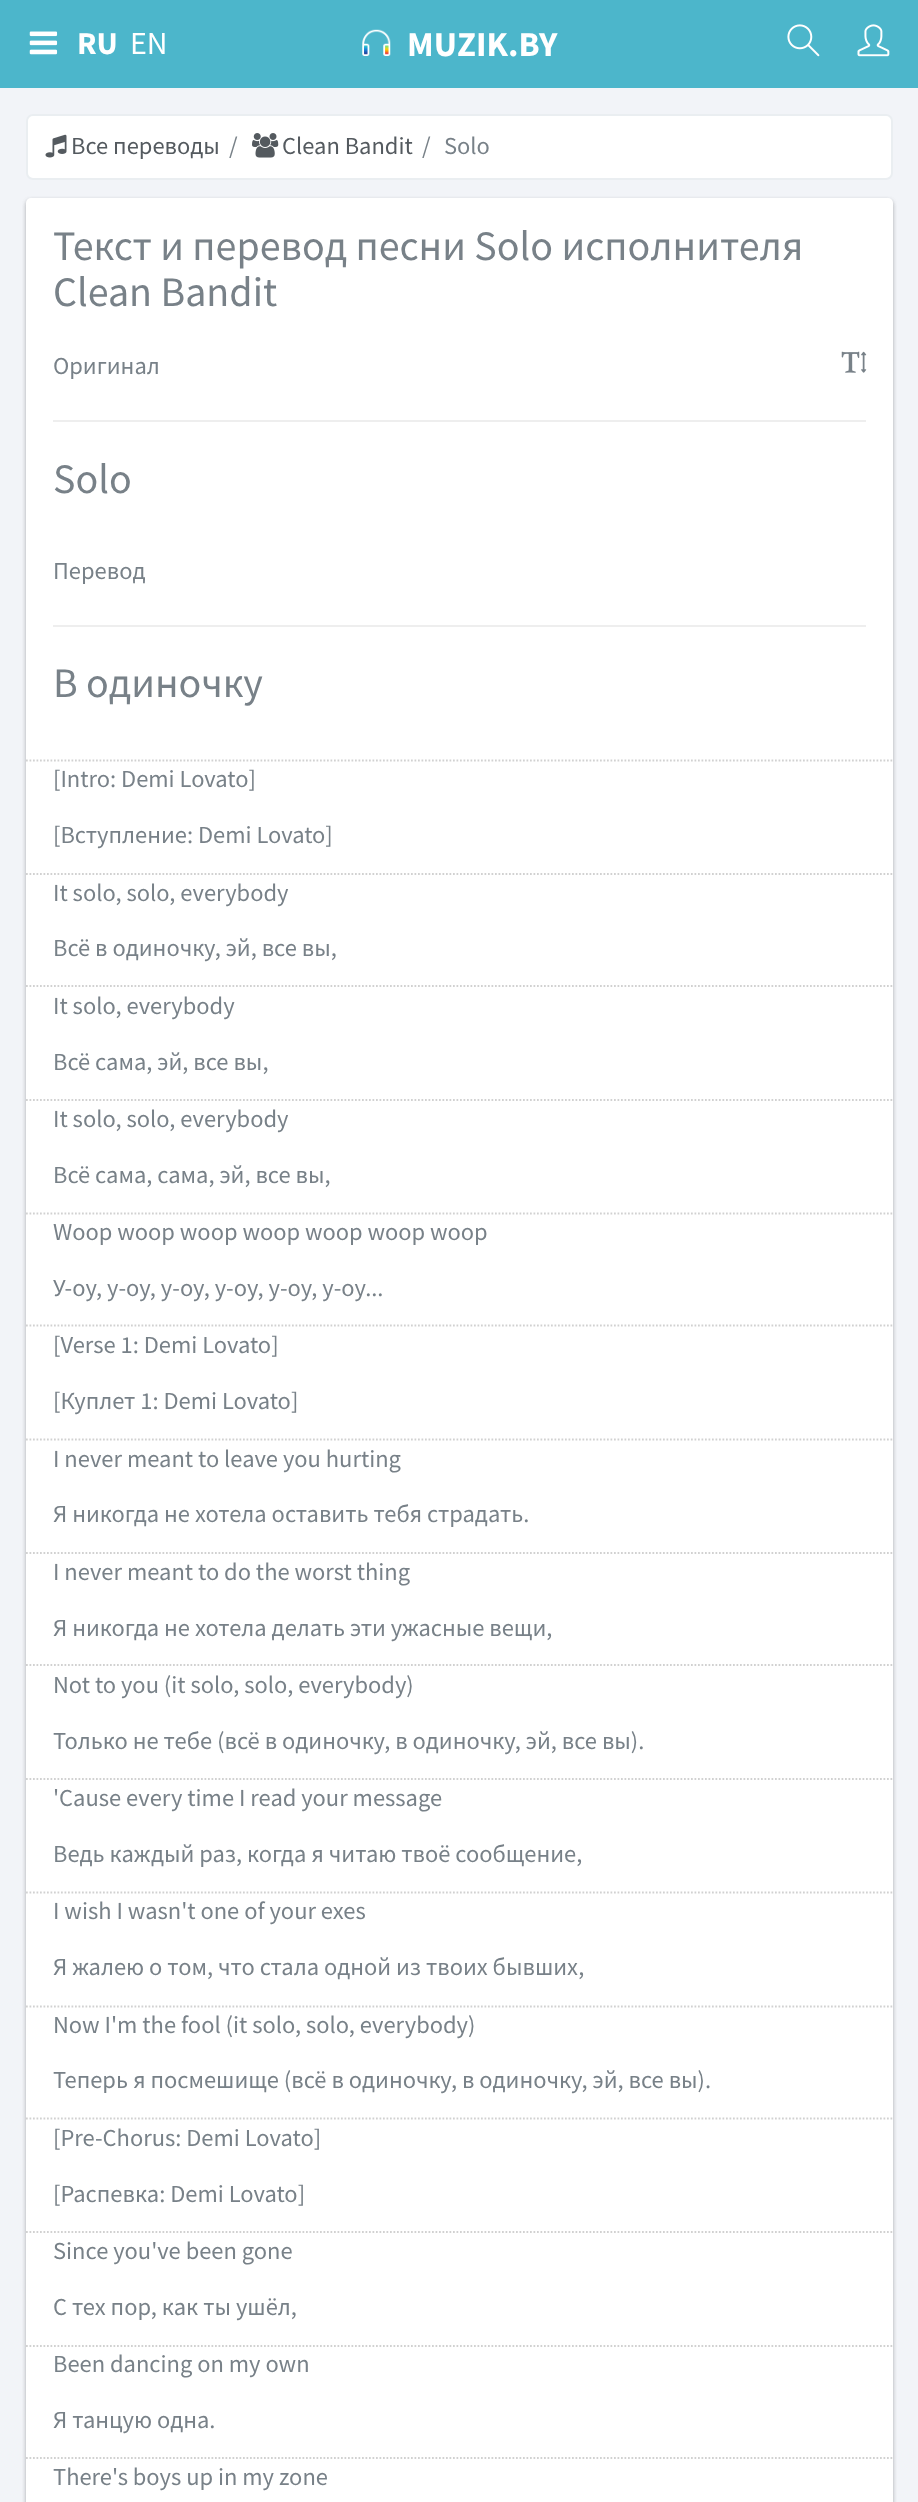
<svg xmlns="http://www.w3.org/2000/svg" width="918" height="2502">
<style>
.a{font:bold 32px Source Sans Pro;fill:#fff}
.b{font:32px Source Sans Pro;fill:#fff}
.c{font:bold 35px Source Sans Pro;fill:#fff}
.d{font:24.5px Source Sans Pro;fill:#545a5f}
.e{font:24.5px Source Sans Pro;fill:#788188}
.f{font:42px Source Sans Pro;fill:#788188}
</style>
<rect width="100%" height="100%" fill="#f2f4f8"/>
<path fill="#4cb6cb" d="M0 0h918v88H0z"/>
<image href="1.png" x="29" y="31" width="29" height="24"/>
<image href="2.png" x="362" y="29" width="29" height="27"/>
<image href="3.png" x="787" y="24" width="33" height="33"/>
<image href="4.png" x="857" y="24" width="33" height="33"/>
<rect fill="#fff" stroke="#eaeef1" stroke-width="2" x="27" y="115" width="865" height="64" rx="6"/>
<image href="5.png" x="45" y="134" width="22" height="24"/>
<image href="6.png" x="252" y="133" width="27" height="25"/>
<rect fill="#00000026" filter="blur(2px)" x="26" y="200" width="867" height="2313" rx="5"/>
<rect fill="#00000026" filter="blur(2px)" x="26" y="200" width="867" height="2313" rx="5"/>
<rect fill="#fff" x="26" y="198" width="867" height="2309" rx="5"/>
<image href="7.png" x="841" y="351" width="26" height="22"/>
<path fill="#eee" d="M53 420h813v2H53z"/>
<path fill="#eee" d="M53 625h813v2H53z"/>
<path fill="none" stroke="#d1d1d1" stroke-width="1.8" stroke-dasharray="1.75 1.75" d="M26 760.5h866.5"/>
<path fill="none" stroke="#d1d1d1" stroke-width="1.8" stroke-dasharray="1.75 1.75" d="M26 874h866.5"/>
<path fill="none" stroke="#d1d1d1" stroke-width="1.8" stroke-dasharray="1.75 1.75" d="M26 986h866.5"/>
<path fill="none" stroke="#d1d1d1" stroke-width="1.8" stroke-dasharray="1.75 1.75" d="M26 1100h866.5"/>
<path fill="none" stroke="#d1d1d1" stroke-width="1.8" stroke-dasharray="1.75 1.75" d="M26 1213.5h866.5"/>
<path fill="none" stroke="#d1d1d1" stroke-width="1.8" stroke-dasharray="1.75 1.75" d="M26 1325.5h866.5"/>
<path fill="none" stroke="#d1d1d1" stroke-width="1.8" stroke-dasharray="1.75 1.75" d="M26 1439.5h866.5"/>
<path fill="none" stroke="#d1d1d1" stroke-width="1.8" stroke-dasharray="1.75 1.75" d="M26 1553h866.5"/>
<path fill="none" stroke="#d1d1d1" stroke-width="1.8" stroke-dasharray="1.75 1.75" d="M26 1665h866.5"/>
<path fill="none" stroke="#d1d1d1" stroke-width="1.8" stroke-dasharray="1.75 1.75" d="M26 1779h866.5"/>
<path fill="none" stroke="#d1d1d1" stroke-width="1.8" stroke-dasharray="1.75 1.75" d="M26 1892.5h866.5"/>
<path fill="none" stroke="#d1d1d1" stroke-width="1.8" stroke-dasharray="1.75 1.75" d="M26 2006.5h866.5"/>
<path fill="none" stroke="#d1d1d1" stroke-width="1.8" stroke-dasharray="1.75 1.75" d="M26 2118.5h866.5"/>
<path fill="none" stroke="#d1d1d1" stroke-width="1.8" stroke-dasharray="1.75 1.75" d="M26 2232h866.5"/>
<path fill="none" stroke="#d1d1d1" stroke-width="1.8" stroke-dasharray="1.75 1.75" d="M26 2346h866.5"/>
<path fill="none" stroke="#d1d1d1" stroke-width="1.8" stroke-dasharray="1.75 1.75" d="M26 2458h866.5"/>
<text class="a" x="77" y="54">RU</text>
<text class="b" x="130" y="54">EN</text>
<text class="c" x="407" y="56">MUZIK.BY</text>
<text class="d" x="71" y="154">Все переводы</text>
<text class="e" x="229" y="154">/</text>
<text class="d" x="282" y="154">Clean Bandit</text>
<text class="e" x="422" y="154">/</text>
<text class="e" x="444" y="154">Solo</text>
<text class="f" x="53" y="260">Текст и перевод песни Solo исполнителя</text>
<text class="f" x="53" y="306">Clean Bandit</text>
<text class="e" x="53" y="374">Оригинал</text>
<text class="f" x="53" y="493">Solo</text>
<text class="e" x="53" y="579">Перевод</text>
<text class="f" x="53" y="697">В одиночку</text>
<text class="e" x="53" y="787">[Intro: Demi Lovato]</text>
<text class="e" x="53" y="843">[Вступление: Demi Lovato]</text>
<text class="e" x="53" y="901">It solo, solo, everybody</text>
<text class="e" x="53" y="956">Всё в одиночку, эй, все вы,</text>
<text class="e" x="53" y="1014">It solo, everybody</text>
<text class="e" x="53" y="1070">Всё сама, эй, все вы,</text>
<text class="e" x="53" y="1127">It solo, solo, everybody</text>
<text class="e" x="53" y="1183">Всё сама, сама, эй, все вы,</text>
<text class="e" x="53" y="1240">Woop woop woop woop woop woop woop</text>
<text class="e" x="53" y="1296">У-оу, у-оу, у-оу, у-оу, у-оу, у-оу...</text>
<text class="e" x="53" y="1353">[Verse 1: Demi Lovato]</text>
<text class="e" x="53" y="1409">[Куплет 1: Demi Lovato]</text>
<text class="e" x="53" y="1467">I never meant to leave you hurting</text>
<text class="e" x="53" y="1522">Я никогда не хотела оставить тебя страдать.</text>
<text class="e" x="53" y="1580">I never meant to do the worst thing</text>
<text class="e" x="53" y="1636">Я никогда не хотела делать эти ужасные вещи,</text>
<text class="e" x="53" y="1693">Not to you (it solo, solo, everybody)</text>
<text class="e" x="53" y="1749">Только не тебе (всё в одиночку, в одиночку, эй, все вы).</text>
<text class="e" x="53" y="1806">'Cause every time I read your message</text>
<text class="e" x="53" y="1862">Ведь каждый раз, когда я читаю твоё сообщение,</text>
<text class="e" x="53" y="1919">I wish I wasn't one of your exes</text>
<text class="e" x="53" y="1975">Я жалею о том, что стала одной из твоих бывших,</text>
<text class="e" x="53" y="2033">Now I'm the fool (it solo, solo, everybody)</text>
<text class="e" x="53" y="2088">Теперь я посмешище (всё в одиночку, в одиночку, эй, все вы).</text>
<text class="e" x="53" y="2146">[Pre-Chorus: Demi Lovato]</text>
<text class="e" x="53" y="2202">[Распевка: Demi Lovato]</text>
<text class="e" x="53" y="2259">Since you've been gone</text>
<text class="e" x="53" y="2315">С тех пор, как ты ушёл,</text>
<text class="e" x="53" y="2372">Been dancing on my own</text>
<text class="e" x="53" y="2428">Я танцую одна.</text>
<text class="e" x="53" y="2485">There's boys up in my zone</text>
</svg>
